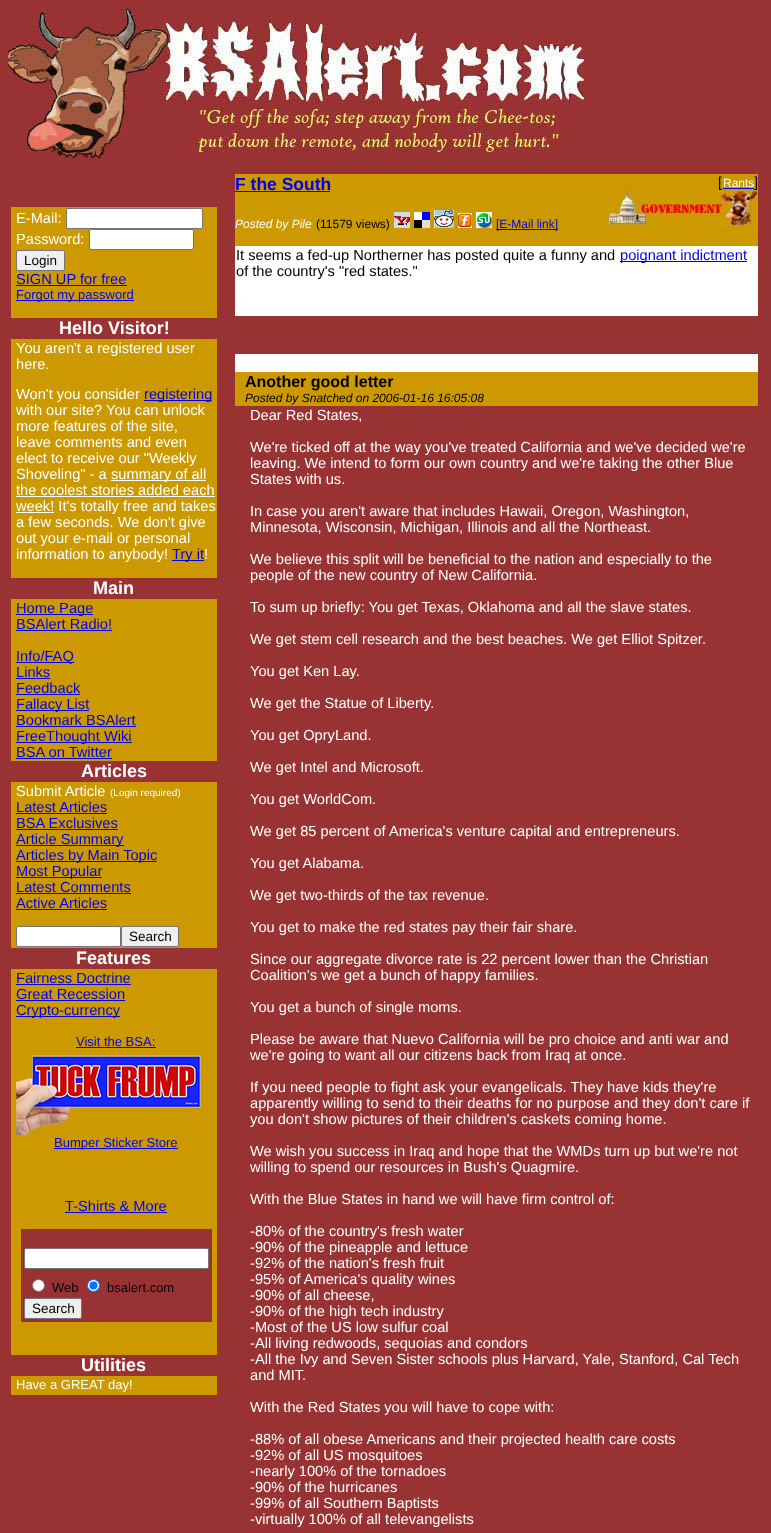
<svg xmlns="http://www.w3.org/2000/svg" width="771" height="1533">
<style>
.a{font:14.65px Liberation Sans;fill:#fff}
.b{font:13.5px Liberation Sans;fill:#000}
.c{font:14.65px Liberation Sans;fill:#00e}
.d{font:13px Liberation Sans;fill:#00e}
.e{font:bold 18px Liberation Sans;fill:#fff}
.f{font:10px Liberation Sans;fill:#fff}
.g{font:13px Liberation Sans;fill:#000}
.h{font:13px Liberation Sans;fill:#fff}
.i{font:bold 17.5px Liberation Sans;fill:#00e}
.j{font:italic 12px Liberation Sans;fill:#fff}
.k{font:12px Liberation Sans;fill:#000}
.l{font:12px Liberation Sans;fill:#00e}
.m{font:14.65px Liberation Sans;fill:#000}
.n{font:12px Liberation Sans;fill:#fff}
.o{font:bold 16px Liberation Sans;fill:#000}
.p{font:italic 12px Liberation Sans;fill:#000}
</style>
<rect width="100%" height="100%" fill="#933"/>
<image href="1.png" x="8" y="8" width="576" height="150"/>
<path fill="#c90" d="M11 207h206v111H11z"/>
<rect fill="#fff" stroke="#767676" x="66.5" y="208.5" width="136" height="20" rx="1.5"/>
<rect fill="#fff" stroke="#767676" x="89.5" y="229.5" width="104" height="20" rx="1.5"/>
<rect fill="#efefef" stroke="#767676" x="16.5" y="250.5" width="48" height="20" rx="1.5"/>
<path fill="#00e" d="M16 285h111v1H16z"/>
<path fill="#00e" d="M16 300h118v1H16z"/>
<path fill="#c90" d="M11 339h206v239H11z"/>
<path fill="#00e" d="M144 400h68v1H144z"/>
<path fill="#fff" d="M111 480h95v1H111z"/>
<path fill="#fff" d="M16 496h199v1H16z"/>
<path fill="#fff" d="M16 512h38v1H16z"/>
<path fill="#00e" d="M172 560h32v1H172z"/>
<path fill="#c90" d="M11 599h206v162H11z"/>
<path fill="#00e" d="M16 614h77v1H16z"/>
<path fill="#00e" d="M16 630h96v1H16z"/>
<path fill="#00e" d="M16 662h58v1H16z"/>
<path fill="#00e" d="M16 678h34v1H16z"/>
<path fill="#00e" d="M16 694h64v1H16z"/>
<path fill="#00e" d="M16 710h73v1H16z"/>
<path fill="#00e" d="M16 726h120v1H16z"/>
<path fill="#00e" d="M16 742h116v1H16z"/>
<path fill="#00e" d="M16 758h96v1H16z"/>
<path fill="#c90" d="M11 782h206v166H11z"/>
<path fill="#00e" d="M16 813h91v1H16z"/>
<path fill="#00e" d="M16 829h102v1H16z"/>
<path fill="#00e" d="M16 845h108v1H16z"/>
<path fill="#00e" d="M16 861h141v1H16z"/>
<path fill="#00e" d="M16 877h86v1H16z"/>
<path fill="#00e" d="M16 893h115v1H16z"/>
<path fill="#00e" d="M16 909h91v1H16z"/>
<rect fill="#fff" stroke="#767676" x="16.5" y="926.5" width="104" height="20" rx="1.5"/>
<rect fill="#efefef" stroke="#767676" x="121.5" y="926.5" width="57" height="20" rx="1.5"/>
<path fill="#c90" d="M11 969h206v386H11z"/>
<path fill="#00e" d="M16 984h115v1H16z"/>
<path fill="#00e" d="M16 1000h109v1H16z"/>
<path fill="#00e" d="M16 1016h104v1H16z"/>
<path fill="#00e" d="M76 1047h80v1H76z"/>
<image href="2.png" x="16" y="1055" width="185" height="80"/>
<path fill="#00e" d="M54 1148h124v1H54z"/>
<path fill="#00e" d="M65 1212h102v1H65z"/>
<path fill="#933" d="M21 1229h191v93H21z"/>
<rect fill="#fff" stroke="#767676" x="24.5" y="1248.5" width="184" height="20" rx="1.5"/>
<circle fill="#fff" stroke="#767676" cx="38.5" cy="1285.5" r="6"/>
<circle fill="#fff" stroke="#0075ff" cx="93.5" cy="1285.5" r="6"/>
<circle fill="#0075ff" cx="93.5" cy="1285.5" r="4"/>
<rect fill="#efefef" stroke="#767676" x="24.5" y="1298.5" width="57" height="20" rx="1.5"/>
<path fill="#c90" d="M11 1376h206v19H11z"/>
<path fill="#c90" d="M235 174h523v72H235z"/>
<path fill="#00e" d="M235 191h95v1H235z"/>
<image href="3.png" x="394" y="212" width="16" height="16"/>
<image href="4.png" x="414" y="212" width="16" height="16"/>
<image href="5.png" x="434" y="210" width="20" height="18"/>
<image href="6.png" x="458" y="213" width="14" height="15"/>
<image href="7.png" x="476" y="212" width="16" height="16"/>
<path fill="#00e" d="M496 229h62v1H496z"/>
<path fill="#00e" d="M723 188h31v1H723z"/>
<path fill="#fff" d="M235 246h523v70H235z"/>
<path fill="#00e" d="M620 261h127v1H620z"/>
<path fill="#fff" d="M235 354h523v18H235z"/>
<path fill="#c90" d="M235 372h523v34H235z"/>
<text class="a" x="16" y="223">E-Mail:</text>
<text class="a" x="16" y="244">Password:</text>
<text class="b" x="24" y="265">Login</text>
<text class="c" x="16" y="284">SIGN UP for free</text>
<text class="d" x="16" y="299">Forgot my password</text>
<text class="e" x="59" y="334">Hello Visitor!</text>
<text class="a" x="16" y="353">You aren't a registered user</text>
<text class="a" x="16" y="369">here.</text>
<text class="a" x="16" y="399">Won't you consider</text>
<text class="c" x="144" y="399">registering</text>
<text class="a" x="16" y="415">with our site? You can unlock</text>
<text class="a" x="16" y="431">more features of the site,</text>
<text class="a" x="16" y="447">leave comments and even</text>
<text class="a" x="16" y="463">elect to receive our "Weekly</text>
<text class="a" x="16" y="479">Shoveling" - a</text>
<text class="a" x="111" y="479">summary of all</text>
<text class="a" x="16" y="495">the coolest stories added each</text>
<text class="a" x="16" y="511">week! It's totally free and takes</text>
<text class="a" x="16" y="527">a few seconds. We don't give</text>
<text class="a" x="16" y="543">out your e-mail or personal</text>
<text class="a" x="16" y="559">information to anybody!</text>
<text class="c" x="172" y="559">Try it</text>
<text class="a" x="204" y="559">!</text>
<text class="e" x="93" y="594">Main</text>
<text class="c" x="16" y="613">Home Page</text>
<text class="c" x="16" y="629">BSAlert Radio!</text>
<text class="c" x="16" y="661">Info/FAQ</text>
<text class="c" x="16" y="677">Links</text>
<text class="c" x="16" y="693">Feedback</text>
<text class="c" x="16" y="709">Fallacy List</text>
<text class="c" x="16" y="725">Bookmark BSAlert</text>
<text class="c" x="16" y="741">FreeThought Wiki</text>
<text class="c" x="16" y="757">BSA on Twitter</text>
<text class="e" x="81" y="777">Articles</text>
<text class="a" x="16" y="796">Submit Article</text>
<text class="f" x="110" y="796">(Login required)</text>
<text class="c" x="16" y="812">Latest Articles</text>
<text class="c" x="16" y="828">BSA Exclusives</text>
<text class="c" x="16" y="844">Article Summary</text>
<text class="c" x="16" y="860">Articles by Main Topic</text>
<text class="c" x="16" y="876">Most Popular</text>
<text class="c" x="16" y="892">Latest Comments</text>
<text class="c" x="16" y="908">Active Articles</text>
<text class="b" x="129" y="941">Search</text>
<text class="e" x="76" y="964">Features</text>
<text class="c" x="16" y="983">Fairness Doctrine</text>
<text class="c" x="16" y="999">Great Recession</text>
<text class="c" x="16" y="1015">Crypto-currency</text>
<text class="d" x="76" y="1046">Visit the BSA:</text>
<text class="d" x="54" y="1147">Bumper Sticker Store</text>
<text class="c" x="65" y="1211">T-Shirts &amp; More</text>
<text class="g" x="52" y="1292">Web</text>
<text class="g" x="107" y="1292">bsalert.com</text>
<text class="b" x="32" y="1313">Search</text>
<text class="e" x="81" y="1371">Utilities</text>
<text class="h" x="16" y="1389">Have a GREAT day!</text>
<text class="i" x="235" y="190">F the South</text>
<text class="j" x="235" y="228">Posted by Pile</text>
<text class="k" x="316" y="228">(11579 views)</text>
<text class="l" x="496" y="228">[E-Mail link]</text>
<text class="m" x="718" y="187">[</text>
<text class="n" x="723" y="187">Rants</text>
<text class="m" x="754" y="187">]</text>
<image href="8.png" x="608" y="190" width="150" height="35"/>
<text class="m" x="236" y="260">It seems a fed-up Northerner has posted quite a funny and</text>
<text class="c" x="620" y="260">poignant indictment</text>
<text class="m" x="236" y="276">of the country's "red states."</text>
<text class="o" x="245" y="387">Another good letter</text>
<text class="p" x="245" y="402">Posted by Snatched on 2006-01-16 16:05:08</text>
<text class="a" x="250" y="420">Dear Red States,</text>
<text class="a" x="250" y="452">We're ticked off at the way you've treated California and we've decided we're</text>
<text class="a" x="250" y="468">leaving. We intend to form our own country and we're taking the other Blue</text>
<text class="a" x="250" y="484">States with us.</text>
<text class="a" x="250" y="516">In case you aren't aware that includes Hawaii, Oregon, Washington,</text>
<text class="a" x="250" y="532">Minnesota, Wisconsin, Michigan, Illinois and all the Northeast.</text>
<text class="a" x="250" y="564">We believe this split will be beneficial to the nation and especially to the</text>
<text class="a" x="250" y="580">people of the new country of New California.</text>
<text class="a" x="250" y="612">To sum up briefly: You get Texas, Oklahoma and all the slave states.</text>
<text class="a" x="250" y="644">We get stem cell research and the best beaches. We get Elliot Spitzer.</text>
<text class="a" x="250" y="676">You get Ken Lay.</text>
<text class="a" x="250" y="708">We get the Statue of Liberty.</text>
<text class="a" x="250" y="740">You get OpryLand.</text>
<text class="a" x="250" y="772">We get Intel and Microsoft.</text>
<text class="a" x="250" y="804">You get WorldCom.</text>
<text class="a" x="250" y="836">We get 85 percent of America's venture capital and entrepreneurs.</text>
<text class="a" x="250" y="868">You get Alabama.</text>
<text class="a" x="250" y="900">We get two-thirds of the tax revenue.</text>
<text class="a" x="250" y="932">You get to make the red states pay their fair share.</text>
<text class="a" x="250" y="964">Since our aggregate divorce rate is 22 percent lower than the Christian</text>
<text class="a" x="250" y="980">Coalition's we get a bunch of happy families.</text>
<text class="a" x="250" y="1012">You get a bunch of single moms.</text>
<text class="a" x="250" y="1044">Please be aware that Nuevo California will be pro choice and anti war and</text>
<text class="a" x="250" y="1060">we're going to want all our citizens back from Iraq at once.</text>
<text class="a" x="250" y="1092">If you need people to fight ask your evangelicals. They have kids they're</text>
<text class="a" x="250" y="1108">apparently willing to send to their deaths for no purpose and they don't care if</text>
<text class="a" x="250" y="1124">you don't show pictures of their children's caskets coming home.</text>
<text class="a" x="250" y="1156">We wish you success in Iraq and hope that the WMDs turn up but we're not</text>
<text class="a" x="250" y="1172">willing to spend our resources in Bush's Quagmire.</text>
<text class="a" x="250" y="1204">With the Blue States in hand we will have firm control of:</text>
<text class="a" x="250" y="1236">-80% of the country's fresh water</text>
<text class="a" x="250" y="1252">-90% of the pineapple and lettuce</text>
<text class="a" x="250" y="1268">-92% of the nation's fresh fruit</text>
<text class="a" x="250" y="1284">-95% of America's quality wines</text>
<text class="a" x="250" y="1300">-90% of all cheese,</text>
<text class="a" x="250" y="1316">-90% of the high tech industry</text>
<text class="a" x="250" y="1332">-Most of the US low sulfur coal</text>
<text class="a" x="250" y="1348">-All living redwoods, sequoias and condors</text>
<text class="a" x="250" y="1364">-All the Ivy and Seven Sister schools plus Harvard, Yale, Stanford, Cal Tech</text>
<text class="a" x="250" y="1380">and MIT.</text>
<text class="a" x="250" y="1412">With the Red States you will have to cope with:</text>
<text class="a" x="250" y="1444">-88% of all obese Americans and their projected health care costs</text>
<text class="a" x="250" y="1460">-92% of all US mosquitoes</text>
<text class="a" x="250" y="1476">-nearly 100% of the tornadoes</text>
<text class="a" x="250" y="1492">-90% of the hurricanes</text>
<text class="a" x="250" y="1508">-99% of all Southern Baptists</text>
<text class="a" x="250" y="1524">-virtually 100% of all televangelists</text>
</svg>
